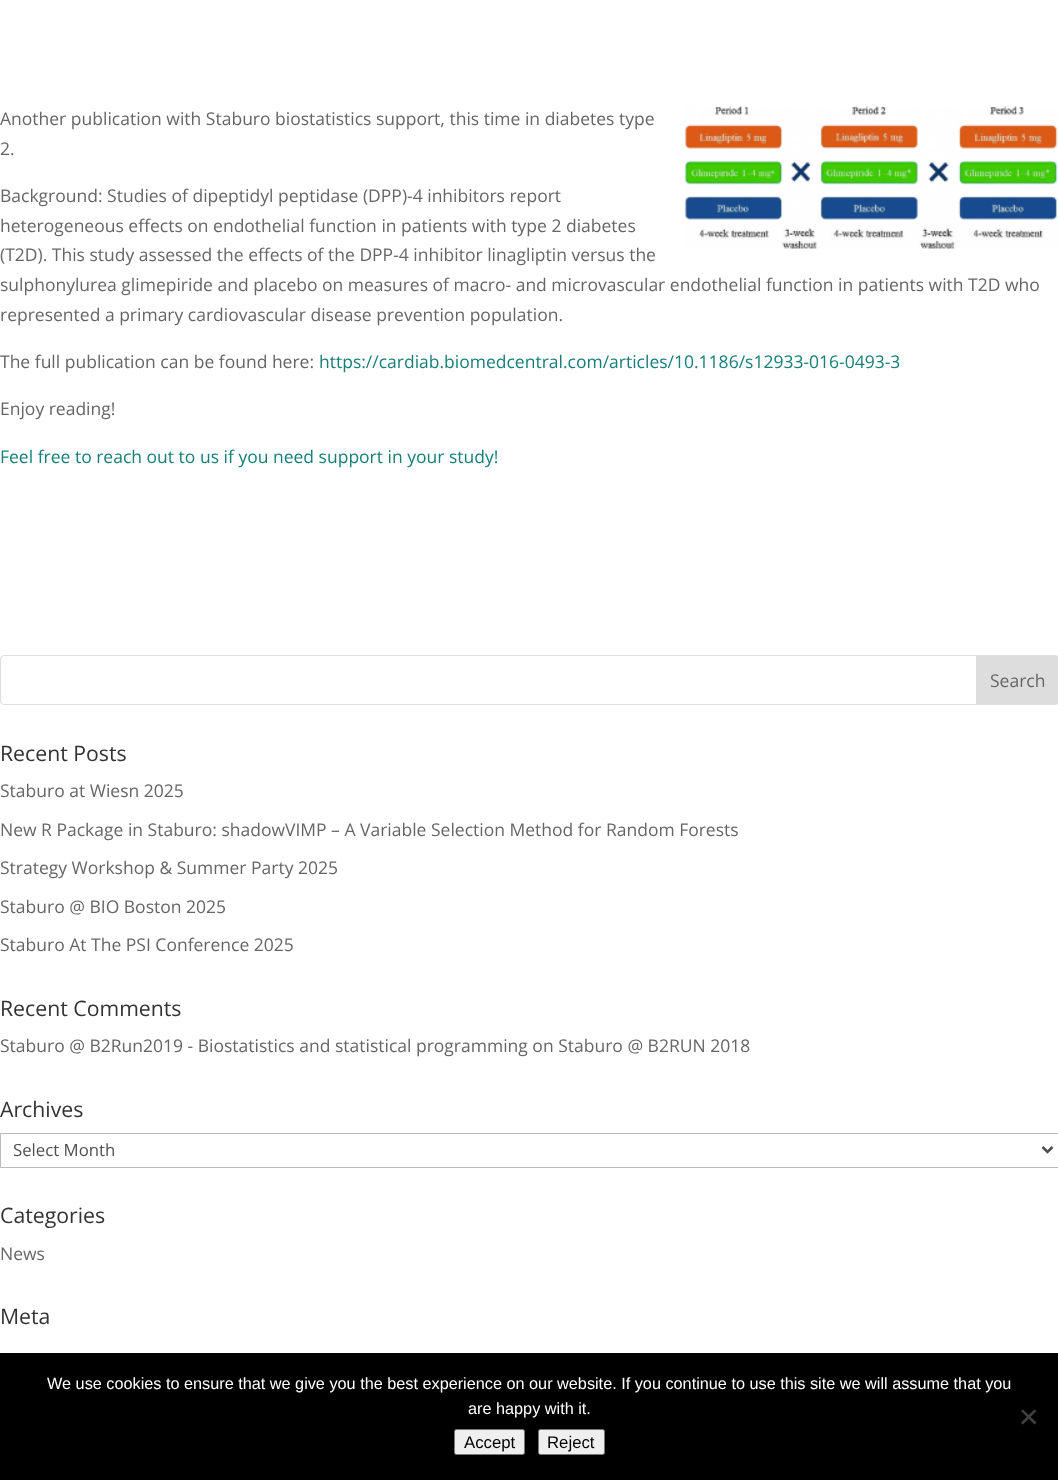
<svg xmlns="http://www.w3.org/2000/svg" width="1058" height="1480">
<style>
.a{font:17.5px Open Sans;fill:#666}
.b{font:17.5px Open Sans;fill:#167f79}
.c{font:21.25px Open Sans;fill:#333}
.d{font:16.75px Open Sans;fill:#4e4e4e}
.e{font:16.25px Liberation Sans;fill:#fff}
.f{font:16.75px Liberation Sans;fill:#000}
</style>
<rect width="100%" height="100%" fill="#fff"/>
<image href="1.png" x="684" y="106" width="374" height="143"/>
<rect fill="none" stroke="#ddd" x="0.5" y="655.5" width="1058" height="49" rx="3.5"/>
<path fill="#ddd" stroke="#ddd" d="M976.5 655.5h78.5c2 0 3.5 1.5 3.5 3.5v42c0 2-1.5 3.5-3.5 3.5h-78.5z"/>
<path fill="none" stroke="#bbb" d="M0.5 1133.5h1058v34H0.5z"/>
<path fill="none" stroke="#4e4e4e" stroke-width="2.5" d="M1042.5 1147l5 5l5-5"/>
<path fill="#000" d="M0 1353h1058v127H0z"/>
<path fill="#404040" d="M1034.5 1409.5l2 1.5l-13.5 13.5l-2-2z"/>
<path fill="#404040" d="M1021 1411l2-1.5l13.5 13l-2 2z"/>
<rect fill="#efefef" stroke="#767676" x="454.5" y="1429.5" width="70" height="25" rx="2"/>
<rect fill="#efefef" stroke="#767676" x="538.5" y="1429.5" width="66" height="25" rx="2"/>
<text class="a" x="0" y="125">Another publication with Staburo biostatistics support, this time in diabetes type</text>
<text class="a" x="0" y="155">2.</text>
<text class="a" x="0" y="202">Background: Studies of dipeptidyl peptidase (DPP)-4 inhibitors report</text>
<text class="a" x="0" y="232">heterogeneous effects on endothelial function in patients with type 2 diabetes</text>
<text class="a" x="0" y="261">(T2D). This study assessed the effects of the DPP-4 inhibitor linagliptin versus the</text>
<text class="a" x="0" y="291">sulphonylurea glimepiride and placebo on measures of macro- and microvascular endothelial function in patients with T2D who</text>
<text class="a" x="0" y="321">represented a primary cardiovascular disease prevention population.</text>
<text class="a" x="0" y="368">The full publication can be found here:</text>
<text class="b" x="319" y="368">https://cardiab.biomedcentral.com/articles/10.1186/s12933-016-0493-3</text>
<text class="a" x="0" y="415">Enjoy reading!</text>
<text class="b" x="0" y="463">Feel free to reach out to us if you need support in your study!</text>
<text class="a" x="990" y="687">Search</text>
<text class="c" x="0" y="761">Recent Posts</text>
<text class="a" x="0" y="797">Staburo at Wiesn 2025</text>
<text class="a" x="0" y="836">New R Package in Staburo: shadowVIMP – A Variable Selection Method for Random Forests</text>
<text class="a" x="0" y="874">Strategy Workshop &amp; Summer Party 2025</text>
<text class="a" x="0" y="913">Staburo @ BIO Boston 2025</text>
<text class="a" x="0" y="951">Staburo At The PSI Conference 2025</text>
<text class="c" x="0" y="1016">Recent Comments</text>
<text class="a" x="0" y="1052">Staburo @ B2Run2019 - Biostatistics and statistical programming on Staburo @ B2RUN 2018</text>
<text class="c" x="0" y="1117">Archives</text>
<text class="d" x="13" y="1156">Select Month</text>
<text class="c" x="0" y="1223">Categories</text>
<text class="a" x="0" y="1260">News</text>
<text class="c" x="0" y="1324">Meta</text>
<text class="e" x="47" y="1389">We use cookies to ensure that we give you the best experience on our website. If you continue to use this site we will assume that you</text>
<text class="e" x="468" y="1414">are happy with it.</text>
<text class="f" x="464" y="1448">Accept</text>
<text class="f" x="547" y="1448">Reject</text>
</svg>
